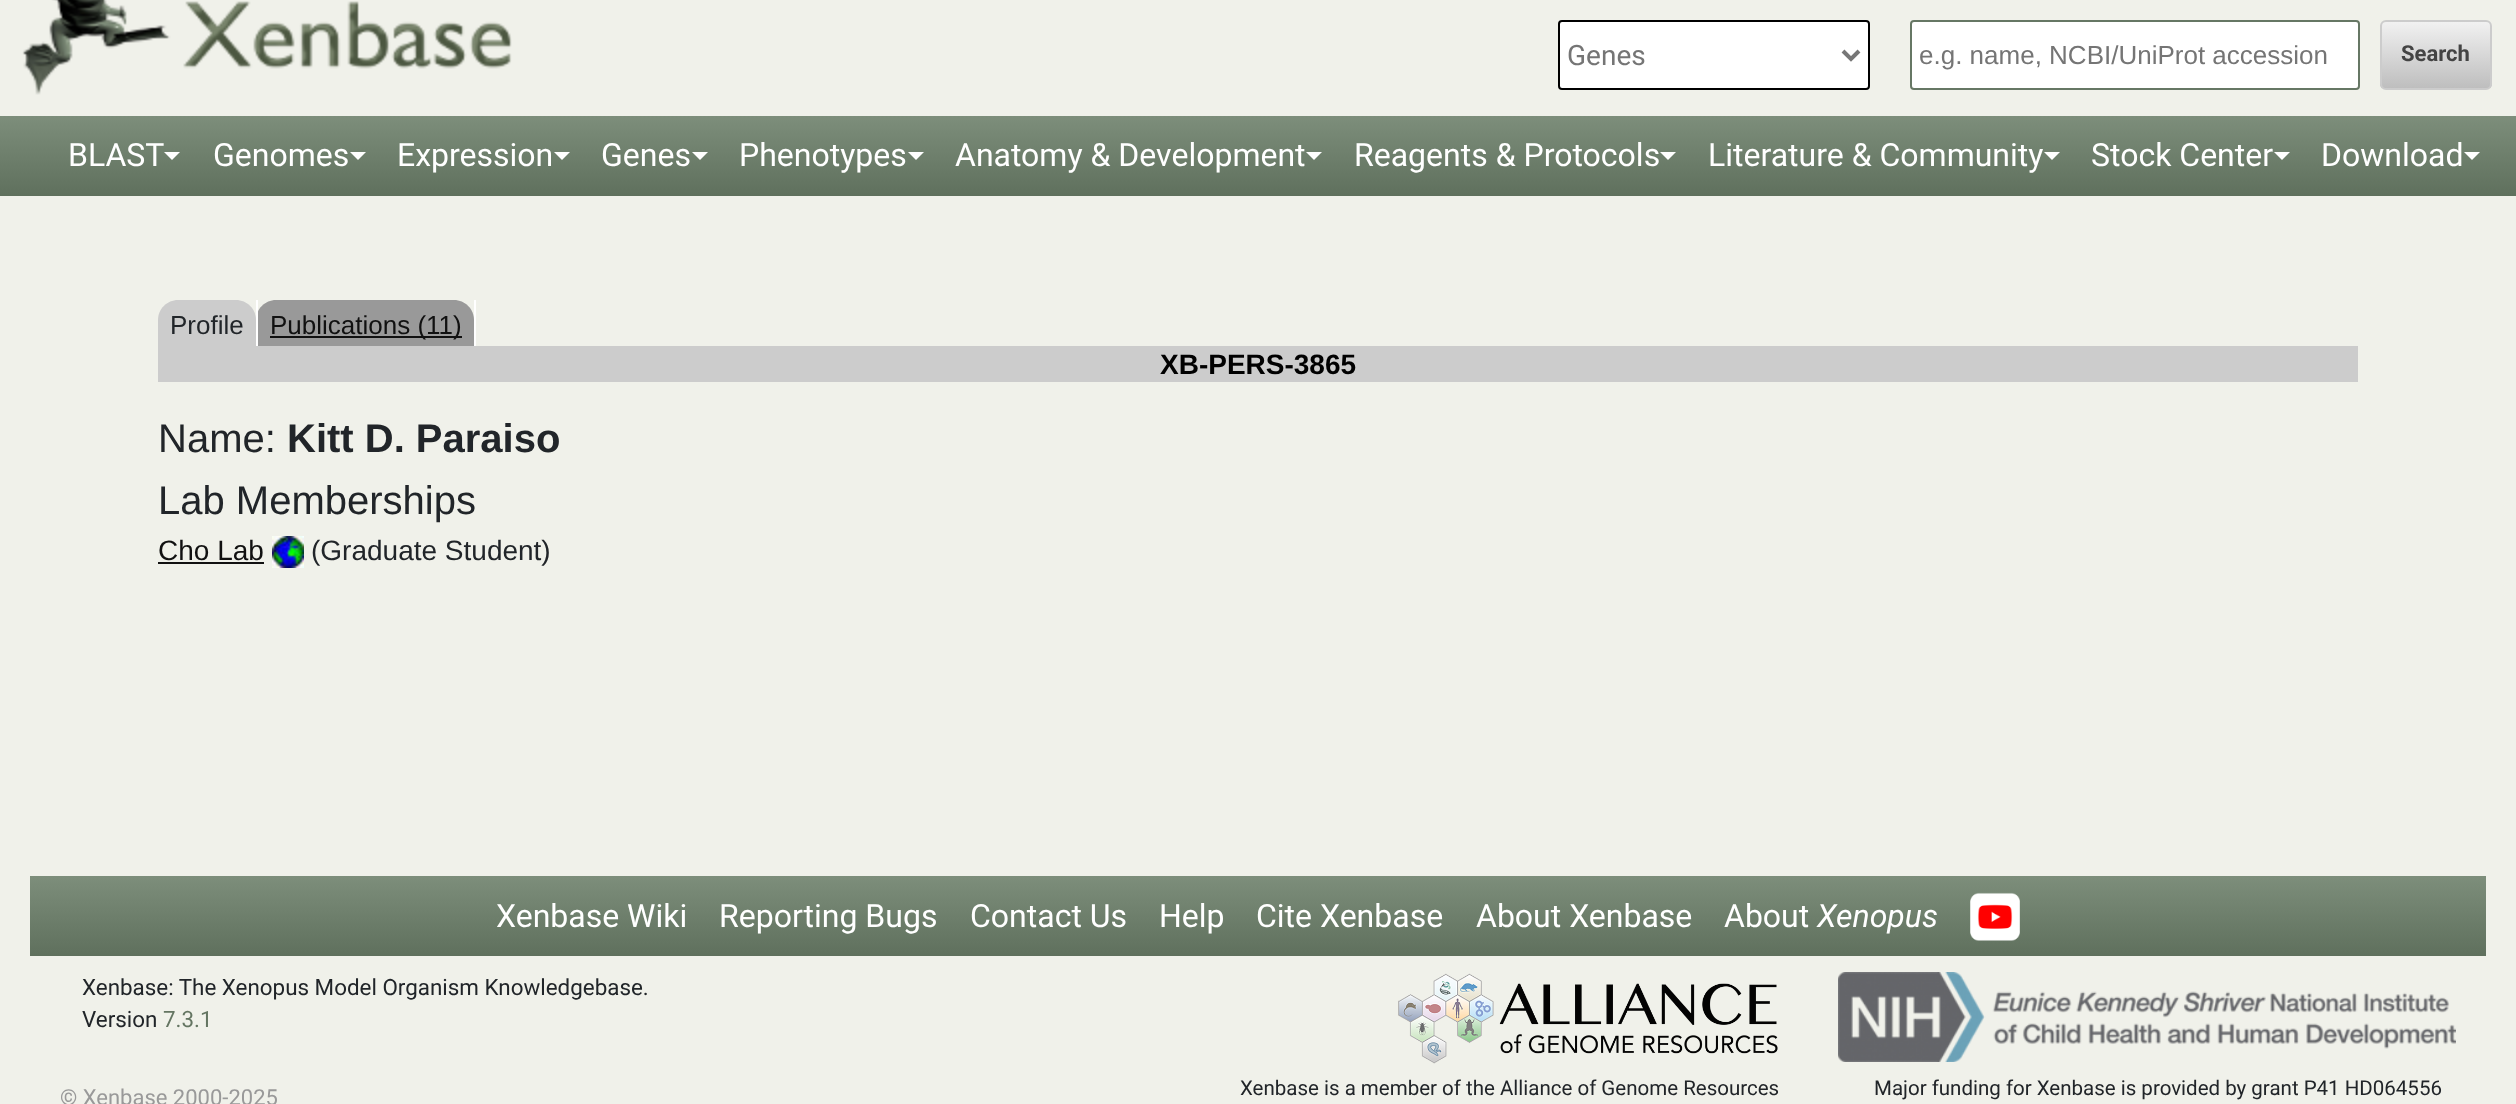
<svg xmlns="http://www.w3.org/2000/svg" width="2516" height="1104">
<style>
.a{font:28px Roboto;fill:#757575}
.b{font:26px Liberation Sans;fill:#757575}
.c{font:bold 22px Roboto;fill:#444}
.d{font:32px Roboto;fill:#fff}
.e{font:26px Liberation Sans;fill:#212529}
.f{font:26px Liberation Sans;fill:#111}
.g{font:bold 28px Liberation Sans;fill:#000}
.h{font:40px Liberation Sans;fill:#212529}
.i{font:bold 40px Liberation Sans;fill:#212529}
.j{font:28px Liberation Sans;fill:#111}
.k{font:28px Liberation Sans;fill:#212529}
.l{font:italic 32px Roboto;fill:#fff}
.m{font:22.4px Roboto;fill:#212529}
.n{font:22.4px Roboto;fill:#647562}
.o{font:22px Roboto;fill:#999}
.p{font:20.5px Roboto;fill:#212529}
</style>
<defs>
<clipPath id="clip1"><rect x="2380" y="20" width="112" height="70" rx="6"/></clipPath>
<linearGradient id="g1" gradientUnits="userSpaceOnUse" x1="2436" y1="22" x2="2436" y2="88"><stop offset="0" stop-color="#f1f1f1"/><stop offset="1" stop-color="#bebebe"/></linearGradient>
<linearGradient id="g2" gradientUnits="userSpaceOnUse" x1="1258" y1="116" x2="1258" y2="196"><stop offset="0" stop-color="#7d8e7b"/><stop offset="1" stop-color="#5f705d"/></linearGradient>
<linearGradient id="g3" gradientUnits="userSpaceOnUse" x1="1258" y1="876" x2="1258" y2="956"><stop offset="0" stop-color="#7d8e7b"/><stop offset="1" stop-color="#5f705d"/></linearGradient>
</defs>
<rect width="100%" height="100%" fill="#f0f1ea"/>
<image href="1.png" x="22" y="0" width="490" height="95"/>
<rect fill="#fff" stroke="#000" stroke-width="2" x="1559" y="21" width="310" height="68" rx="3"/>
<path fill="none" stroke="#777" stroke-width="4" d="M1843 51l8 8l8-8"/>
<rect fill="#fff" stroke="#667764" stroke-width="2" x="1911" y="21" width="448" height="68" rx="3"/>
<g clip-path="url(#clip1)">
<path fill="url(#g1)" d="M2380 22h112v66H2380z"/>
</g>
<rect fill="none" stroke="#ccc" stroke-width="2" x="2381" y="21" width="110" height="68" rx="5"/>
<path fill="url(#g2)" d="M0 116h2516v80H0z"/>
<path fill="#fff" d="M164 152h16l-8 8z"/>
<path fill="#fff" d="M350 152h16l-8 8z"/>
<path fill="#fff" d="M554 152h16l-8 8z"/>
<path fill="#fff" d="M692 152h16l-8 8z"/>
<path fill="#fff" d="M908 152h16l-8 8z"/>
<path fill="#fff" d="M1306 152h16l-8 8z"/>
<path fill="#fff" d="M1660 152h16l-8 8z"/>
<path fill="#fff" d="M2044 152h16l-8 8z"/>
<path fill="#fff" d="M2274 152h16l-8 8z"/>
<path fill="#fff" d="M2464 152h16l-8 8z"/>
<path fill="#ccc" d="M178 300h58c11 0 20 9 20 20v30h-98v-30c0-11 9-20 20-20z"/>
<path fill="#999" d="M276 300h178c11 0 20 9 20 20v30h-218v-30c0-11 9-20 20-20z"/>
<path fill="#fff" d="M256 300h2v52H256z"/>
<path fill="#fff" d="M474 300h2v52H474z"/>
<path fill="#111" d="M270 336h192v2H270z"/>
<path fill="#ccc" d="M158 346h2200v36H158z"/>
<path fill="#111" d="M158 562h106v2H158z"/>
<image href="2.png" x="272" y="536" width="32" height="32"/>
<path fill="url(#g3)" d="M30 876h2456v80H30z"/>
<image href="3.png" x="1970" y="892" width="50" height="49"/>
<image href="4.png" x="1398" y="973" width="380" height="91"/>
<image href="5.png" x="1838" y="972" width="618" height="90"/>
<text class="a" x="1567" y="65">Genes</text>
<text class="b" x="1919" y="64">e.g. name, NCBI/UniProt accession</text>
<text class="c" x="2401" y="61">Search</text>
<text class="d" x="68" y="166">BLAST</text>
<text class="d" x="213" y="166">Genomes</text>
<text class="d" x="397" y="166">Expression</text>
<text class="d" x="601" y="166">Genes</text>
<text class="d" x="739" y="166">Phenotypes</text>
<text class="d" x="955" y="166">Anatomy &amp; Development</text>
<text class="d" x="1354" y="166">Reagents &amp; Protocols</text>
<text class="d" x="1708" y="166">Literature &amp; Community</text>
<text class="d" x="2091" y="166">Stock Center</text>
<text class="d" x="2321" y="166">Download</text>
<text class="e" x="170" y="334">Profile</text>
<text class="f" x="270" y="334">Publications (11)</text>
<text class="g" x="1160" y="374">XB-PERS-3865</text>
<text class="h" x="158" y="452">Name:</text>
<text class="i" x="287" y="452">Kitt D. Paraiso</text>
<text class="h" x="158" y="514">Lab Memberships</text>
<text class="j" x="158" y="560">Cho Lab</text>
<text class="k" x="311" y="560">(Graduate Student)</text>
<text class="d" x="496" y="927">Xenbase Wiki</text>
<text class="d" x="719" y="927">Reporting Bugs</text>
<text class="d" x="970" y="927">Contact Us</text>
<text class="d" x="1159" y="927">Help</text>
<text class="d" x="1256" y="927">Cite Xenbase</text>
<text class="d" x="1476" y="927">About Xenbase</text>
<text class="d" x="1724" y="927">About</text>
<text class="l" x="1817" y="927">Xenopus</text>
<text class="m" x="82" y="995">Xenbase: The Xenopus Model Organism Knowledgebase.</text>
<text class="m" x="82" y="1027">Version</text>
<text class="n" x="163" y="1027">7.3.1</text>
<text class="o" x="60" y="1105">© Xenbase 2000-2025</text>
<text class="p" x="1240" y="1095">Xenbase is a member of the Alliance of Genome Resources</text>
<text class="p" x="1874" y="1095">Major funding for Xenbase is provided by grant P41 HD064556</text>
</svg>
